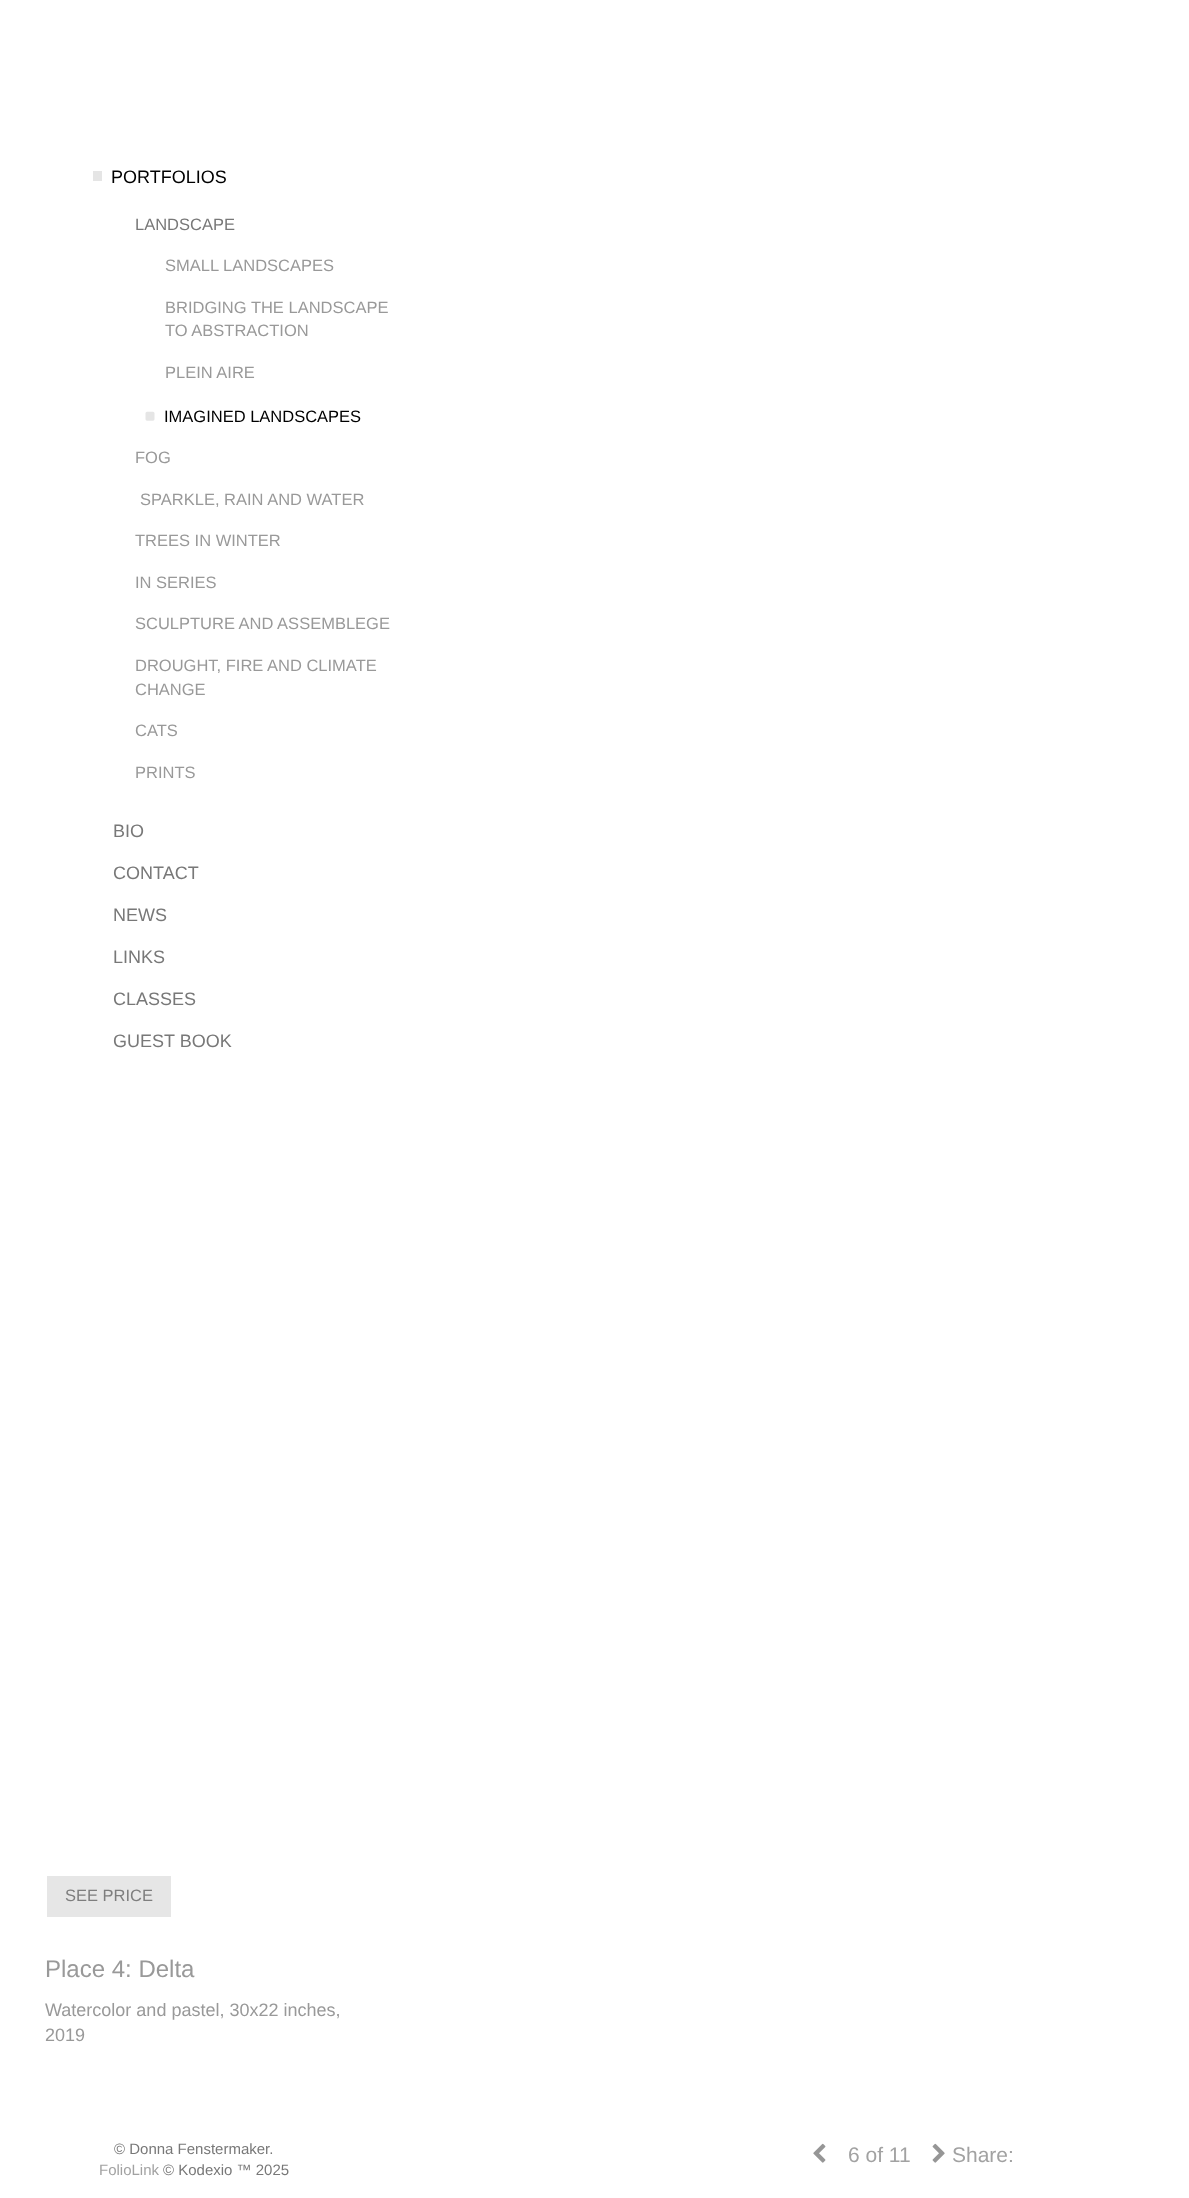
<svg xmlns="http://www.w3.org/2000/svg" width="1189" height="2198">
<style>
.a{font:18px Liberation Sans;fill:#000}
.b{font:16.5px Liberation Sans;fill:#787878}
.c{font:16.5px Liberation Sans;fill:#999}
.d{font:16.5px Liberation Sans;fill:#000}
.e{font:18px Liberation Sans;fill:#787878}
.f{font:16.5px Liberation Sans;fill:#7e7e7e}
.g{font:24px Liberation Sans;fill:#999}
.h{font:18px Liberation Sans;fill:#999}
.i{font:15px Liberation Sans;fill:#787878}
.j{font:15px Liberation Sans;fill:#a2a2a2}
.k{font:21px Liberation Sans;fill:#a2a2a2}
</style>
<rect width="100%" height="100%" fill="#fff"/>
<path fill="#e5e5e5" d="M93 171h9v10H93z"/>
<image href="1.png" x="145" y="411" width="10" height="10"/>
<path fill="#e6e6e6" d="M47 1876h124v41H47z"/>
<image href="2.png" x="813" y="2143" width="13" height="20"/>
<image href="3.png" x="932" y="2143" width="13" height="20"/>
<text class="a" x="111" y="183">PORTFOLIOS</text>
<text class="b" x="135" y="230">LANDSCAPE</text>
<text class="c" x="165" y="271">SMALL LANDSCAPES</text>
<text class="c" x="165" y="313">BRIDGING THE LANDSCAPE</text>
<text class="c" x="165" y="336">TO ABSTRACTION</text>
<text class="c" x="165" y="378">PLEIN AIRE</text>
<text class="d" x="164" y="422">IMAGINED LANDSCAPES</text>
<text class="c" x="135" y="463">FOG</text>
<text class="c" x="140" y="505">SPARKLE, RAIN AND WATER</text>
<text class="c" x="135" y="546">TREES IN WINTER</text>
<text class="c" x="135" y="588">IN SERIES</text>
<text class="c" x="135" y="629">SCULPTURE AND ASSEMBLEGE</text>
<text class="c" x="135" y="671">DROUGHT, FIRE AND CLIMATE</text>
<text class="c" x="135" y="695">CHANGE</text>
<text class="c" x="135" y="736">CATS</text>
<text class="c" x="135" y="778">PRINTS</text>
<text class="e" x="113" y="837">BIO</text>
<text class="e" x="113" y="879">CONTACT</text>
<text class="e" x="113" y="921">NEWS</text>
<text class="e" x="113" y="963">LINKS</text>
<text class="e" x="113" y="1005">CLASSES</text>
<text class="e" x="113" y="1047">GUEST BOOK</text>
<text class="f" x="65" y="1901">SEE PRICE</text>
<text class="g" x="45" y="1977">Place 4: Delta</text>
<text class="h" x="45" y="2016">Watercolor and pastel, 30x22 inches,</text>
<text class="h" x="45" y="2041">2019</text>
<text class="i" x="114" y="2154">© Donna Fenstermaker.</text>
<text class="j" x="99" y="2175">FolioLink</text>
<text class="i" x="163" y="2175">© Kodexio ™ 2025</text>
<text class="k" x="848" y="2162">6 of 11</text>
<text class="k" x="952" y="2162">Share:</text>
</svg>
